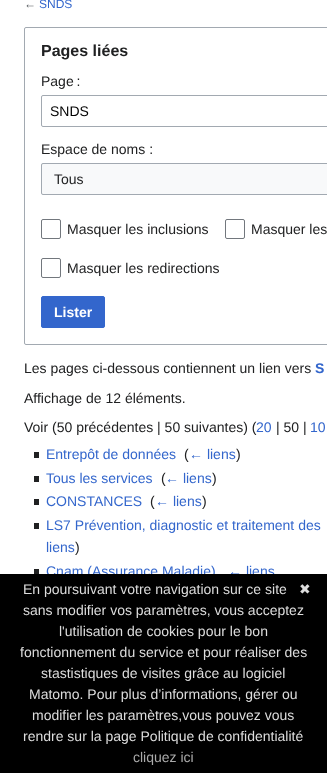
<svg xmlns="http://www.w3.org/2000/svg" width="327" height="773">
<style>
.a{font:12px Liberation Sans;fill:#54595d}
.b{font:12px Liberation Sans;fill:#36c}
.c{font:bold 16px Liberation Sans;fill:#202122}
.d{font:14px Liberation Sans;fill:#202122}
.e{font:14px Liberation Sans;fill:#000}
.f{font:bold 14px Liberation Sans;fill:#fff}
.g{font:bold 14px Liberation Sans;fill:#36c}
.h{font:14px Liberation Sans;fill:#36c}
.i{font:14px Liberation Sans;fill:#ddd}
.j{font:14px DejaVu Sans;fill:#ddd}
.k{font:14px Liberation Sans;fill:#aaa}
</style>
<rect width="100%" height="100%" fill="#fff"/>
<rect fill="none" stroke="#a2a9b1" x="24.5" y="27.5" width="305" height="317" rx="1.5"/>
<rect fill="none" stroke="#a2a9b1" x="41.5" y="95.5" width="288" height="31" rx="1.5"/>
<path fill="#f8f9fa" d="M41 163h286v32H41z"/>
<rect fill="none" stroke="#a2a9b1" x="41.5" y="163.5" width="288" height="31" rx="1.5"/>
<rect fill="none" stroke="#72777d" x="41.5" y="219.5" width="19" height="19" rx="1.5"/>
<rect fill="none" stroke="#72777d" x="225.5" y="219.5" width="19" height="19" rx="1.5"/>
<rect fill="none" stroke="#72777d" x="41.5" y="258.5" width="19" height="19" rx="1.5"/>
<rect fill="#36c" stroke="#36c" x="41.5" y="296.5" width="63" height="31" rx="1.5"/>
<path fill="#202122" d="M34 452h5v6H34z"/>
<path fill="#202122" d="M34 476h5v6H34z"/>
<path fill="#202122" d="M34 499h5v6H34z"/>
<path fill="#202122" d="M34 523h5v6H34z"/>
<path fill="#202122" d="M34 569h5v6H34z"/>
<text class="a" x="24" y="8">←</text>
<text class="b" x="39" y="8">SNDS</text>
<text class="c" x="41" y="56">Pages liées</text>
<text class="d" x="41" y="86">Page :</text>
<text class="e" x="50" y="116">SNDS</text>
<text class="d" x="41" y="154">Espace de noms :</text>
<text class="d" x="54" y="184">Tous</text>
<text class="d" x="67" y="234">Masquer les inclusions</text>
<text class="d" x="251" y="234">Masquer les</text>
<text class="d" x="67" y="273">Masquer les redirections</text>
<text class="f" x="54" y="317">Lister</text>
<text class="d" x="24" y="373">Les pages ci-dessous contiennent un lien vers</text>
<text class="g" x="315" y="373">S</text>
<text class="d" x="24" y="403">Affichage de 12 éléments.</text>
<text class="d" x="24" y="432">Voir (50 précédentes | 50 suivantes) (</text>
<text class="h" x="256" y="432">20</text>
<text class="d" x="276" y="432">| 50 |</text>
<text class="h" x="310" y="432">10</text>
<text class="h" x="46" y="459">Entrepôt de données</text>
<text class="d" x="184" y="459">(</text>
<text class="h" x="189" y="459">← liens</text>
<text class="d" x="236" y="459">)</text>
<text class="h" x="46" y="483">Tous les services</text>
<text class="d" x="161" y="483">(</text>
<text class="h" x="165" y="483">← liens</text>
<text class="d" x="212" y="483">)</text>
<text class="h" x="46" y="506">CONSTANCES</text>
<text class="d" x="150" y="506">(</text>
<text class="h" x="155" y="506">← liens</text>
<text class="d" x="202" y="506">)</text>
<text class="h" x="46" y="530">LS7 Prévention, diagnostic et traitement des</text>
<text class="h" x="46" y="552">liens</text>
<text class="d" x="75" y="552">)</text>
<text class="h" x="46" y="576">Cnam (Assurance Maladie)</text>
<text class="h" x="228" y="576">← liens</text>
<path fill="#000" d="M0 574h327v199H0z"/>
<text class="i" x="23" y="594">En poursuivant votre navigation sur ce site</text>
<text class="j" x="299" y="594">✖</text>
<text class="i" x="23" y="615">sans modifier vos paramètres, vous acceptez</text>
<text class="i" x="59" y="636">l'utilisation de cookies pour le bon</text>
<text class="i" x="20" y="657">fonctionnement du service et pour réaliser des</text>
<text class="i" x="41" y="678">stastistiques de visites grâce au logiciel</text>
<text class="i" x="29" y="699">Matomo. Pour plus d’informations, gérer ou</text>
<text class="i" x="32" y="720">modifier les paramètres,vous pouvez vous</text>
<text class="i" x="23" y="741">rendre sur la page Politique de confidentialité</text>
<text class="k" x="133" y="762">cliquez ici</text>
</svg>
